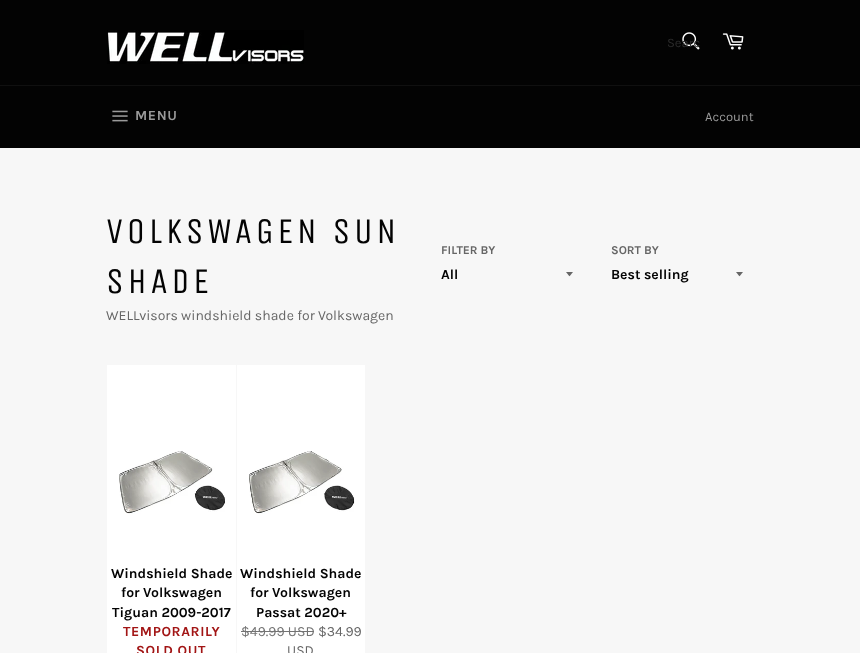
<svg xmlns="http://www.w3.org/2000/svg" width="860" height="653">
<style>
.a{font:13px Karla;fill:#2b2b2b}
.b{font:bold 14px Karla;letter-spacing:0.6px;fill:#9a9a9a}
.c{font:13px Karla;fill:#9a9a9a}
.d{font:36px Unica One;letter-spacing:3.6px;fill:#030303}
.e{font:14px Karla;fill:#666}
.f{font:bold 12px Karla;fill:#666}
.g{font:bold 14px Karla;fill:#030303}
.h{font:bold 14px Karla;letter-spacing:0.6px;fill:#a21515}
.i{font:14px Karla;fill:#737373}
</style>
<rect width="100%" height="100%" fill="#f7f7f7"/>
<path fill="#030303" d="M0 0h860v85H0z"/>
<image href="1.png" x="107" y="30" width="197" height="34"/>
<image href="2.png" x="682" y="32" width="18" height="18"/>
<image href="3.png" x="722" y="33" width="22" height="17"/>
<path fill="#030303" d="M0 86h860v62H0z"/>
<path fill="#101010" d="M0 85h860v1H0z"/>
<image href="4.png" x="112" y="110" width="16" height="12"/>
<path fill="#666" d="M566 272c4.5 5.5 2.5 5.5 7 0z"/>
<path fill="#666" d="M736 272c4.5 5.5 2.5 5.5 7 0z"/>
<path fill="#fff" d="M107 365h129v288H107z"/>
<image href="5.png" x="119" y="451" width="106" height="63"/>
<path fill="#fff" d="M237 365h128v288H237z"/>
<image href="6.png" x="249" y="451" width="106" height="63"/>
<path fill="#737373" d="M241 631h73v1H241z"/>
<text class="a" x="667" y="47">Searc</text>
<text class="b" x="135" y="120">MENU</text>
<text class="c" x="705" y="121">Account</text>
<text class="d" x="106" y="243">VOLKSWAGEN SUN</text>
<text class="d" x="106" y="293">SHADE</text>
<text class="e" x="106" y="320">WELLvisors windshield shade for Volkswagen</text>
<text class="f" x="441" y="254">FILTER BY</text>
<text class="g" x="441" y="279">All</text>
<text class="f" x="611" y="254">SORT BY</text>
<text class="g" x="611" y="279">Best selling</text>
<text class="g" x="111" y="578">Windshield Shade</text>
<text class="g" x="121" y="597">for Volkswagen</text>
<text class="g" x="112" y="617">Tiguan 2009-2017</text>
<text class="h" x="123" y="636">TEMPORARILY</text>
<text class="h" x="136" y="655">SOLD OUT</text>
<text class="g" x="240" y="578">Windshield Shade</text>
<text class="g" x="250" y="597">for Volkswagen</text>
<text class="g" x="256" y="617">Passat 2020+</text>
<text class="i" x="241" y="636">$49.99 USD</text>
<text class="e" x="318" y="636">$34.99</text>
<text class="e" x="287" y="655">USD</text>
</svg>
